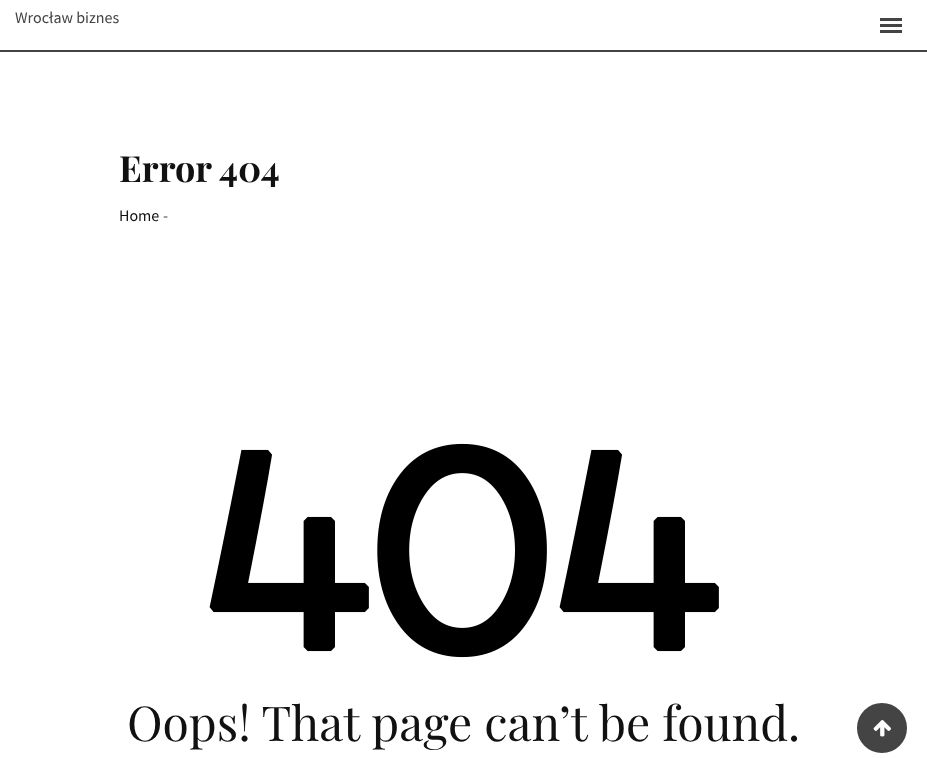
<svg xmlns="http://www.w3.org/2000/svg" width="927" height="758">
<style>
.a{font:16px Source Sans Pro;fill:#444}
.b{font:bold 36px Playfair Display;fill:#111}
.c{font:16px Source Sans Pro;fill:#111}
.d{font:italic 16px Source Sans Pro;fill:#444}
.e{font:48px Playfair Display;fill:#111}
</style>
<rect width="100%" height="100%" fill="#fff"/>
<path fill="#444" d="M0 50h927v2H0z"/>
<path fill="#444" d="M880 18h22v3H880z"/>
<path fill="#444" d="M880 24h22v3H880z"/>
<path fill="#444" d="M880 30h22v3H880z"/>
<image href="1.png" x="209" y="443" width="510" height="215"/>
<circle fill="#444" stroke="#444" stroke-width="2" cx="882" cy="728" r="24"/>
<image href="2.png" x="873" y="720" width="18" height="17"/>
<text class="a" x="15" y="23">Wrocław biznes</text>
<text class="b" x="119" y="182">Error 404</text>
<text class="c" x="119" y="221">Home</text>
<text class="d" x="162" y="221">-</text>
<text class="e" x="127" y="741">Oops! That page can’t be found.</text>
</svg>
